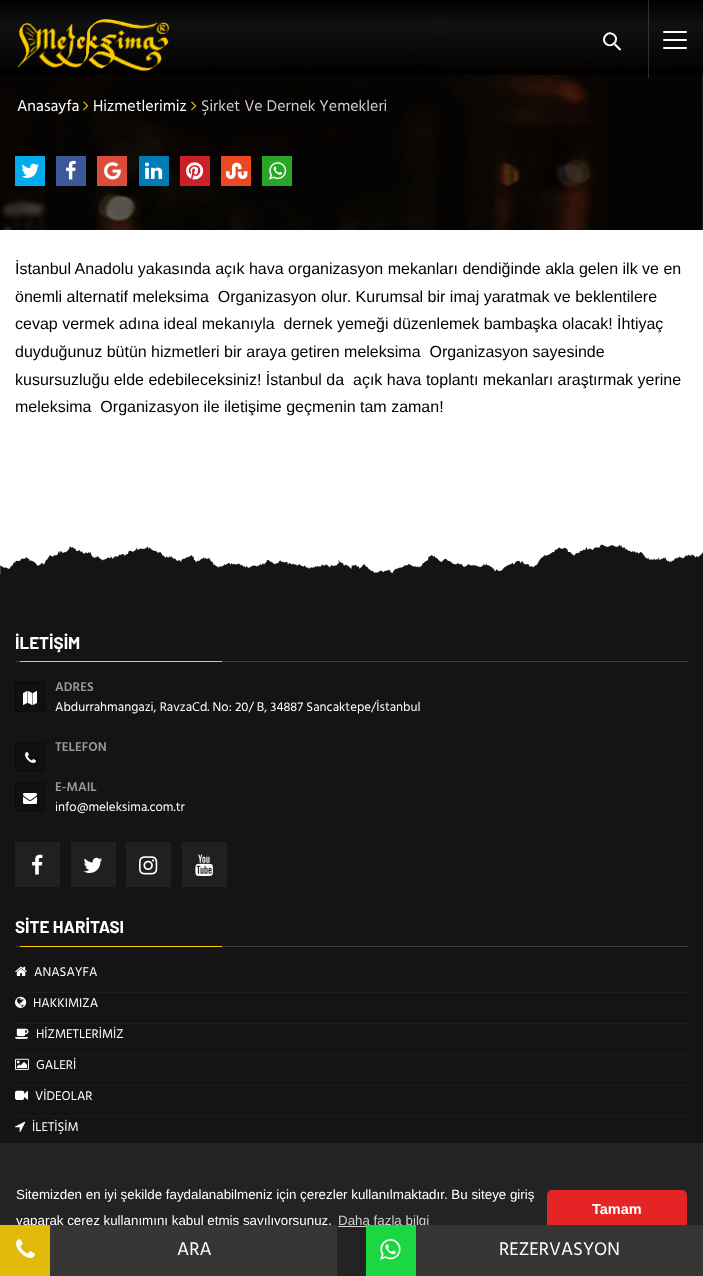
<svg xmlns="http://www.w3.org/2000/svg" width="703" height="1276">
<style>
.a{font:16px Hind Madurai;fill:#fff}
.b{font:16px Hind Madurai;fill:#cecece}
.c{font:16px Liberation Sans;fill:#000}
.d{font:bold 17px Barlow;fill:#fff}
.e{font:600 13px Hind Madurai;fill:#999}
.f{font:13px Hind Madurai;fill:#fff}
.g{font:13.35px Liberation Sans;fill:#fff}
.h{font:18.75px Hind Madurai;fill:#fff}
.i{font:13.35px Liberation Sans;fill:#cecece}
.j{font:bold 14.5px Liberation Sans;fill:#fff}
</style>
<defs>
<linearGradient id="g1" gradientUnits="userSpaceOnUse" x1="351" y1="-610" x2="352" y2="230"><stop offset="0" stop-color="#000" stop-opacity="0"/><stop offset="0.9" stop-color="#000" stop-opacity="0.6"/></linearGradient>
<linearGradient id="g2" gradientUnits="userSpaceOnUse" x1="352" y1="75" x2="352" y2="0"><stop offset="0" stop-color="#141414" stop-opacity="0"/><stop offset="0.68" stop-color="#141414" stop-opacity="0.83"/><stop offset="1" stop-color="#010101" stop-opacity="0.68"/></linearGradient>
</defs>
<rect width="100%" height="100%" fill="#fff"/>
<image href="2.png" x="0" y="0" width="703" height="230"/>
<path fill="url(#g1)" d="M0 0h703v230H0z"/>
<path fill="#000000bf" d="M0 0h703v75H0z"/>
<path fill="url(#g2)" d="M0 0h703v67H0z"/>
<image href="1.png" x="17" y="19" width="153" height="53"/>
<path fill="#414040b8" d="M648 0h1v78H648z"/>
<rect fill="#fcfcfc" x="663" y="31" width="24" height="2" rx="1"/>
<rect fill="#fcfcfc" x="663" y="39" width="24" height="2" rx="1"/>
<rect fill="#fcfcfc" x="663" y="47" width="24" height="2" rx="1"/>
<path fill="none" stroke="#fff" stroke-width="2" d="M606 35c5.5-5.5 14 3 8 8.5c-5.5 5.5-14-2.5-8-8.5z"/>
<path fill="#fff" d="M614 45l1.5-1.5l5.5 5.5c0 1-1 2-2 1z"/>
<image href="3.png" x="83" y="101" width="6" height="10"/>
<image href="4.png" x="191" y="101" width="6" height="10"/>
<path fill="#00aced" d="M15 156h30v30H15z"/>
<image href="5.png" x="21" y="163" width="18" height="15"/>
<path fill="#3b5998" d="M56 156h30v30H56z"/>
<image href="6.png" x="66" y="160" width="10" height="20"/>
<path fill="#dd4b39" d="M97 156h30v30H97z"/>
<image href="7.png" x="104" y="162" width="17" height="18"/>
<path fill="#007bb6" d="M139 156h30v30H139z"/>
<image href="8.png" x="145" y="162" width="18" height="17"/>
<path fill="#cb2027" d="M180 156h30v30H180z"/>
<image href="9.png" x="186" y="162" width="18" height="18"/>
<path fill="#eb4823" d="M221 156h30v30H221z"/>
<image href="10.png" x="226" y="162" width="22" height="17"/>
<path fill="#29a628" d="M262 156h30v30H262z"/>
<image href="11.png" x="269" y="162" width="18" height="18"/>
<image href="12.png" x="0" y="544" width="703" height="30"/>
<path fill="#151414" d="M0 574h703v569H0z"/>
<path fill="#3a3a3a" d="M15 661h673v1H15z"/>
<path fill="#fecc00" d="M20 661h202v1H20z"/>
<path fill="#111010" stroke="#0c0b0b" d="M15.5 682.5h29v29H15.5z"/>
<image href="13.png" x="23" y="691" width="14" height="14"/>
<path fill="#111010" stroke="#0c0b0b" d="M15.5 742.5h29v29H15.5z"/>
<image href="14.png" x="25" y="752" width="11" height="11"/>
<path fill="#111010" stroke="#0c0b0b" d="M15.5 782.5h29v29H15.5z"/>
<image href="15.png" x="23" y="793" width="14" height="11"/>
<path fill="#212020" d="M15 842h45v45H15z"/>
<image href="16.png" x="32" y="854" width="11" height="21"/>
<path fill="#212020" d="M71 842h45v45H71z"/>
<image href="17.png" x="83" y="857" width="20" height="16"/>
<path fill="#212020" d="M126 842h45v45H126z"/>
<image href="18.png" x="139" y="856" width="19" height="19"/>
<path fill="#212020" d="M182 842h45v45H182z"/>
<image href="19.png" x="195" y="854" width="18" height="23"/>
<path fill="#3a3a3a" d="M15 946h673v1H15z"/>
<path fill="#fecc00" d="M20 946h202v1H20z"/>
<path fill="#1e1d1d" d="M15 992h673v1H15z"/>
<image href="20.png" x="15" y="966" width="12" height="10"/>
<path fill="#1e1d1d" d="M15 1023h673v1H15z"/>
<image href="21.png" x="15" y="996" width="12" height="12"/>
<path fill="#1e1d1d" d="M15 1054h673v1H15z"/>
<image href="22.png" x="15" y="1028" width="14" height="11"/>
<path fill="#1e1d1d" d="M15 1085h673v1H15z"/>
<image href="23.png" x="15" y="1058" width="14" height="12"/>
<path fill="#1e1d1d" d="M15 1116h673v1H15z"/>
<image href="24.png" x="15" y="1090" width="13" height="10"/>
<image href="25.png" x="15" y="1121" width="11" height="11"/>
<path fill="#232323" d="M0 1143h703v133H0z"/>
<path fill="#d3d3d3" d="M338 1226h28v1H338z"/>
<rect fill="#e42425" x="547" y="1190" width="140" height="39" rx="5"/>
<text class="a" x="17" y="111">Anasayfa</text>
<text class="a" x="93" y="111">Hizmetlerimiz</text>
<text class="b" x="201" y="111">Şirket Ve Dernek Yemekleri</text>
<text class="c" x="15" y="274">İstanbul Anadolu yakasında açık hava organizasyon mekanları dendiğinde akla gelen ilk ve en</text>
<text class="c" xml:space="preserve" x="15" y="302">önemli alternatif meleksima  Organizasyon olur. Kurumsal bir imaj yaratmak ve beklentilere</text>
<text class="c" xml:space="preserve" x="15" y="329">cevap vermek adına ideal mekanıyla  dernek yemeği düzenlemek bambaşka olacak! İhtiyaç</text>
<text class="c" xml:space="preserve" x="15" y="357">duyduğunuz bütün hizmetleri bir araya getiren meleksima  Organizasyon sayesinde</text>
<text class="c" xml:space="preserve" x="15" y="385">kusursuzluğu elde edebileceksiniz! İstanbul da  açık hava toplantı mekanları araştırmak yerine</text>
<text class="c" xml:space="preserve" x="15" y="412">meleksima  Organizasyon ile iletişime geçmenin tam zaman!</text>
<text class="d" x="15" y="649">İLETİŞİM</text>
<text class="e" x="55" y="691">ADRES</text>
<text class="f" x="55" y="711">Abdurrahmangazi, RavzaCd. No: 20/ B, 34887 Sancaktepe/İstanbul</text>
<text class="e" x="55" y="751">TELEFON</text>
<text class="e" x="55" y="791">E-MAIL</text>
<text class="f" x="55" y="811">info@meleksima.com.tr</text>
<text class="d" x="15" y="933">SİTE HARİTASI</text>
<text class="f" x="34" y="976">ANASAYFA</text>
<text class="f" x="33" y="1007">HAKKIMIZA</text>
<text class="f" x="36" y="1038">HİZMETLERİMİZ</text>
<text class="f" x="36" y="1069">GALERİ</text>
<text class="f" x="35" y="1100">VİDEOLAR</text>
<text class="f" x="32" y="1131">İLETİŞİM</text>
<text class="g" x="16" y="1199">Sitemizden en iyi şekilde faydalanabilmeniz için çerezler kullanılmaktadır. Bu siteye giriş</text>
<text class="g" x="16" y="1225">yaparak çerez kullanımını kabul etmiş sayılıyorsunuz.</text>
<path fill="#383535" d="M50 1225h287v51H50z"/>
<text class="h" x="177" y="1255">ARA</text>
<path fill="#e0b909" d="M0 1225h50v51H0z"/>
<image href="26.png" x="16" y="1239" width="19" height="19"/>
<text class="i" x="338" y="1225">Daha fazla bilgi</text>
<path fill="#383535" d="M416 1225h287v51H416z"/>
<text class="h" x="499" y="1255">REZERVASYON</text>
<path fill="#1bd741" d="M366 1225h50v51H366z"/>
<image href="27.png" x="380" y="1239" width="21" height="21"/>
<text class="j" x="592" y="1214">Tamam</text>
</svg>
